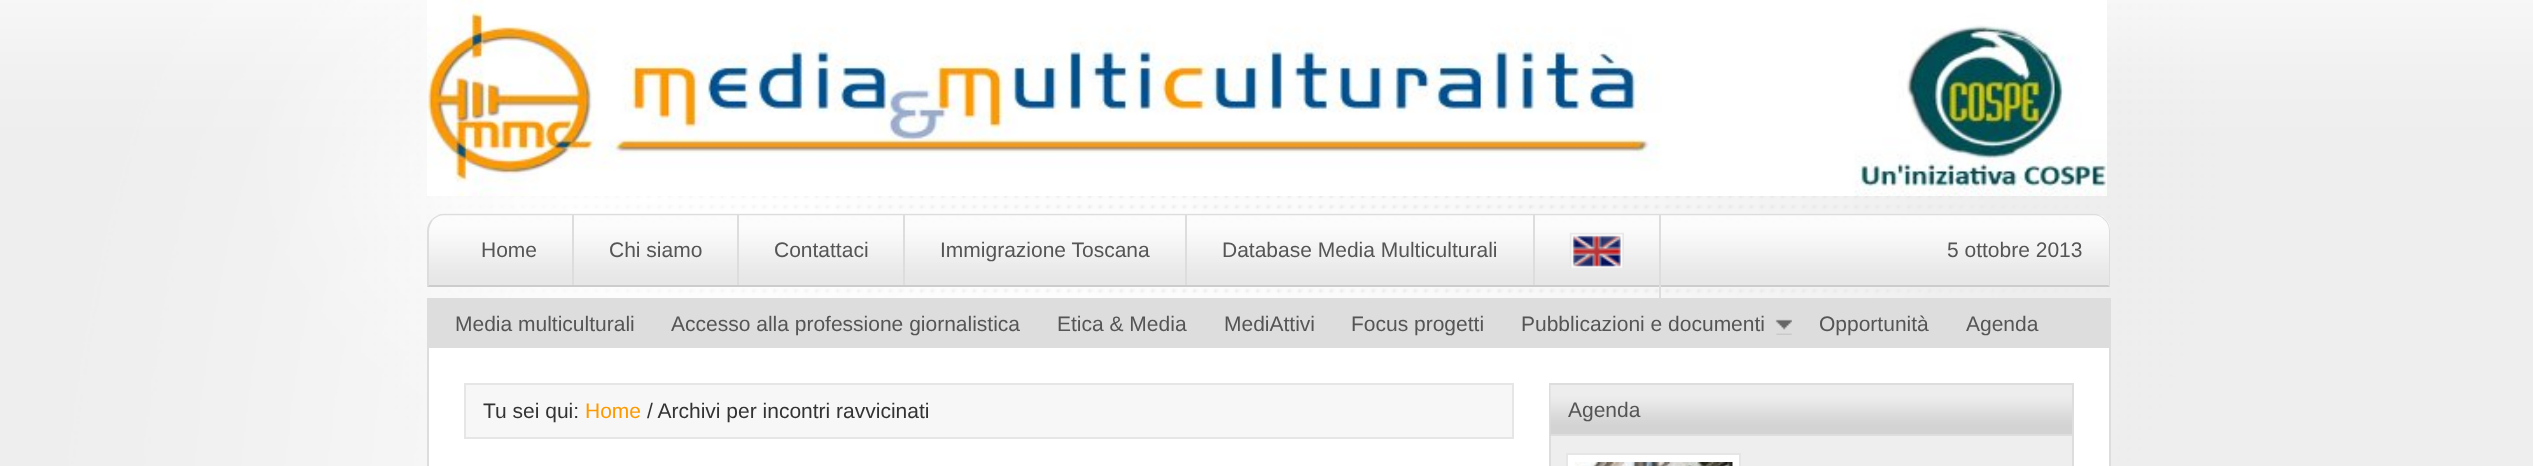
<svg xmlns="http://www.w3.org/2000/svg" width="2533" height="466">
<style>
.a{font:21px Liberation Sans;fill:#555}
.b{font:21px Liberation Sans;fill:#333}
.c{font:21px Liberation Sans;fill:#fd9901}
</style>
<rect width="100%" height="100%" fill="#fff"/>
<image href="1.png" x="0" y="0" width="2533" height="466"/>
<image href="2.png" x="427" y="0" width="1680" height="196"/>
<image href="3.png" x="427" y="213" width="1683" height="74"/>
<path fill="#ddd" d="M444 214c-4 0-9 2-12 5l1 1c3-3 7-5 11-5h1649c5 0 9 2 11 5l1-1c-3-3-7-5-12-5z"/>
<path fill="#ddd" d="M2110 286v-55c0-5-2-9-5-12l-1 1c3 2 5 6 5 11v54h-1z"/>
<path fill="#ccc" d="M2110 287l-2-2h-1679l-2 2z"/>
<path fill="#ddd" d="M427 287l2-2v-54c0-4 2-8 4-11l-1-1c-3 3-5 7-5 12z"/>
<path fill="#ddd" d="M572 215h2v70H572z"/>
<path fill="#ddd" d="M737 215h2v70H737z"/>
<path fill="#ddd" d="M903 215h2v70H903z"/>
<path fill="#ddd" d="M1185 215h2v70H1185z"/>
<path fill="#ddd" d="M1533 215h2v70H1533z"/>
<path fill="#ddd" d="M1659 215h2v83H1659z"/>
<image href="4.png" x="1569" y="232" width="55" height="36"/>
<path fill="#ddd" d="M427 298h1684v50H427z"/>
<image href="5.png" x="1775" y="319" width="17" height="16"/>
<path fill="#fff" d="M429 348h1680v118H429z"/>
<path fill="#ddd" d="M2109 348h2v118H2109z"/>
<path fill="#ddd" d="M427 348h2v118H427z"/>
<path fill="#f7f7f7" stroke="#e6e6e6" stroke-width="2" d="M465 384h1048v54H465z"/>
<path fill="#eee" d="M1551 436h521v30H1551z"/>
<path fill="none" stroke="#ddd" stroke-width="2" d="M1550 384h523v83H1550z"/>
<image href="6.png" x="1550" y="385" width="522" height="51"/>
<path fill="#ddd" d="M1551 434h521v1H1551z"/>
<path fill="#fff" stroke="#e6e6e6" stroke-width="2" d="M1567 454h173v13H1567z"/>
<image href="7.png" x="1575" y="462" width="158" height="4"/>
<text class="a" x="481" y="257">Home</text>
<text class="a" x="609" y="257">Chi siamo</text>
<text class="a" x="774" y="257">Contattaci</text>
<text class="a" x="940" y="257">Immigrazione Toscana</text>
<text class="a" x="1222" y="257">Database Media Multiculturali</text>
<text class="a" x="1947" y="257">5 ottobre 2013</text>
<text class="a" x="455" y="331">Media multiculturali</text>
<text class="a" x="671" y="331">Accesso alla professione giornalistica</text>
<text class="a" x="1057" y="331">Etica &amp; Media</text>
<text class="a" x="1224" y="331">MediAttivi</text>
<text class="a" x="1351" y="331">Focus progetti</text>
<text class="a" x="1521" y="331">Pubblicazioni e documenti</text>
<text class="a" x="1819" y="331">Opportunità</text>
<text class="a" x="1966" y="331">Agenda</text>
<text class="b" x="483" y="418">Tu sei qui:</text>
<text class="c" x="585" y="418">Home</text>
<text class="b" x="647" y="418">/ Archivi per incontri ravvicinati</text>
<text class="a" x="1568" y="417">Agenda</text>
</svg>
